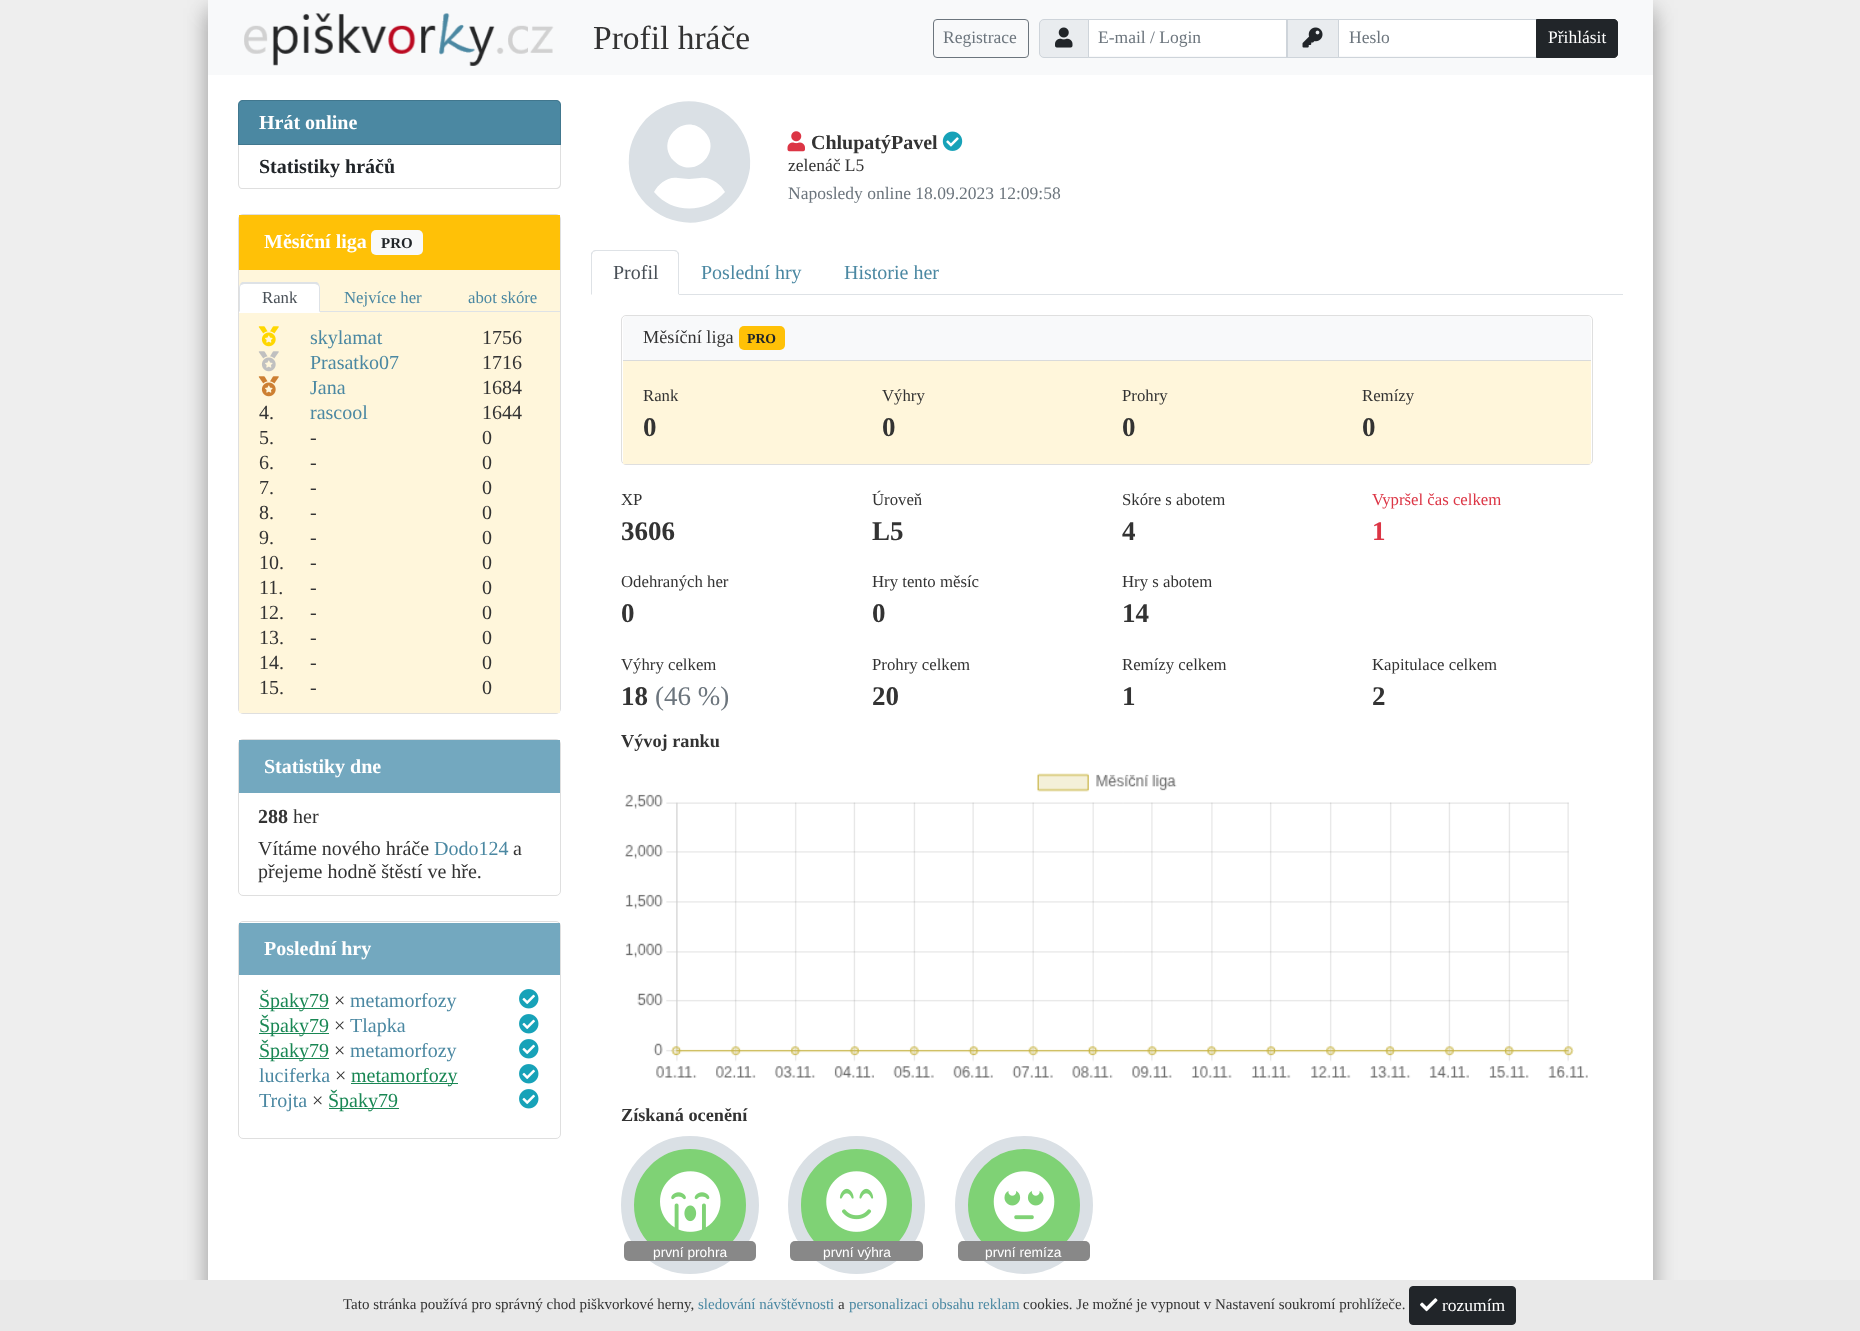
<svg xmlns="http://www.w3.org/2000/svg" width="1860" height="1331">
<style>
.a{font:33.5px Liberation Serif;fill:#333}
.b{font:17.5px Liberation Serif;fill:#6c757d}
.c{font:17.5px Liberation Serif;fill:#fff}
.d{font:bold 20px Liberation Serif;fill:#fff}
.e{font:bold 20px Liberation Serif;fill:#212529}
.f{font:bold 15px Liberation Serif;fill:#212529}
.g{font:16.75px Liberation Serif;fill:#495057}
.h{font:16.75px Liberation Serif;fill:#4b88a2}
.i{font:20px Liberation Serif;fill:#4b88a2}
.j{font:20px Liberation Serif;fill:#333}
.k{font:bold 20px Liberation Serif;fill:#333}
.l{font:20px Liberation Serif;fill:#198754}
.m{font:17.5px Liberation Serif;fill:#333}
.n{font:20px Liberation Serif;fill:#495057}
.o{font:18.25px Liberation Serif;fill:#333}
.p{font:bold 13.75px Liberation Serif;fill:#212529}
.q{font:16.75px Liberation Serif;fill:#333}
.r{font:bold 27px Liberation Serif;fill:#333}
.s{font:16.75px Liberation Serif;fill:#dc3545}
.t{font:bold 27px Liberation Serif;fill:#dc3545}
.u{font:27px Liberation Serif;fill:#6c757d}
.v{font:bold 18.25px Liberation Serif;fill:#333}
.w{font:13.75px Liberation Sans;fill:#fff}
.x{font:15px Liberation Serif;fill:#333}
.y{font:15px Liberation Serif;fill:#4b88a2}
</style>
<rect width="100%" height="100%" fill="#eee"/>
<path fill="#00000030" filter="blur(12.5px)" d="M208 8h1445v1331H208z"/>
<path fill="#00000033" filter="blur(10px)" d="M208 13h1445v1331H208z"/>
<path fill="#fff" d="M208 75h1445v1205H208z"/>
<path fill="#f8f9fa" d="M208 0h1445v75H208z"/>
<image href="1.png" x="244" y="13" width="310" height="53"/>
<rect fill="none" stroke="#6c757d" x="933.5" y="19.5" width="95" height="38" rx="3.5"/>
<path fill="#e9ecef" stroke="#ced4da" d="M1044 19.5h44.5v38h-44.5c-2.5 0-4.5-2-4.5-4.5v-29c0-2.5 2-4.5 4.5-4.5z"/>
<image href="2.png" x="1055" y="27" width="18" height="21"/>
<path fill="#fff" d="M1089 20h197v36H1089z"/>
<path fill="#e9ecef" d="M1288 20h50v37H1288z"/>
<path fill="none" stroke="#ced4da" d="M1286.5 19.5h52v38H1286.5z"/>
<path fill="none" stroke="#ced4da" d="M1088.5 19.5h199v38H1088.5z"/>
<image href="3.png" x="1302" y="27" width="21" height="21"/>
<path fill="#fff" d="M1339 20h197v36H1339z"/>
<path fill="none" stroke="#ced4da" d="M1338.5 19.5h199v38H1338.5z"/>
<path fill="#212529" stroke="#212529" d="M1536.5 19.5h77.5c2 0 3.5 1.5 3.5 3.5v31c0 2-1.5 3.5-3.5 3.5h-77.5z"/>
<path fill="#4b88a2" d="M243 100h313c3 0 5 2 5 5v40h-323v-40c0-3 2-5 5-5z"/>
<path fill="none" stroke="#0000001f" d="M243 100.5h313c2.5 0 4.5 2 4.5 4.5v39.5h-322v-39.5c0-2.5 2-4.5 4.5-4.5z"/>
<path fill="#dfdfdf" fill-rule="evenodd" d="M238 145h323v39c0 3-2 5-5 5h-314c-2 0-4-2-4-5zm1 0h321v39c0 2-2 4-4 4h-314c-2 0-3-2-3-4z"/>
<rect fill="none" stroke="#dfdfdf" x="238.5" y="214.5" width="322" height="499" rx="4.5"/>
<path fill="#ffc107" d="M239 215h321v55H239z"/>
<rect fill="#f8f9fa" x="371" y="230" width="52" height="25" rx="5"/>
<path fill="#fff6db" d="M239 270h321v443H239z"/>
<path fill="#dee2e6" d="M320 311h240v1H320z"/>
<path fill="#fff" d="M244 283h71c3 0 5 2 5 5v25h-81v-25c0-3 2-5 5-5z"/>
<path fill="#dee2e6" d="M244 284l-3 1l-1-1l2-2h75l2 2l-1 1l-3-1z"/>
<path fill="#dee2e6" d="M320 312v-24c0-1.5-.5-3-1.5-4l-1 1c1 .5 1.5 1.5 1.5 3v23h-.5l1 1z"/>
<path fill="#fff" d="M320 312h-81l1-1h78z"/>
<path fill="#dee2e6" d="M239 312v-24c0-1.5 .5-3 1.5-4l.5 1c-.5 .5-1 1.5-1 3v23z"/>
<image href="4.png" x="258" y="326" width="21" height="21"/>
<image href="5.png" x="258" y="351" width="21" height="21"/>
<image href="6.png" x="258" y="376" width="21" height="21"/>
<rect fill="none" stroke="#dfdfdf" x="238.5" y="739.5" width="322" height="156" rx="4.5"/>
<path fill="#73a8bf" d="M239 740h321v53H239z"/>
<rect fill="none" stroke="#dfdfdf" x="238.5" y="921.5" width="322" height="217" rx="4.5"/>
<path fill="#73a8bf" d="M239 923h321v52H239z"/>
<path fill="#198754" d="M259 1008h70v1H259z"/>
<image href="7.png" x="519" y="989" width="20" height="20"/>
<path fill="#198754" d="M259 1033h70v1H259z"/>
<image href="7.png" x="519" y="1014" width="20" height="20"/>
<path fill="#198754" d="M259 1058h70v1H259z"/>
<image href="7.png" x="519" y="1039" width="20" height="20"/>
<path fill="#198754" d="M351 1083h107v1H351z"/>
<image href="7.png" x="519" y="1064" width="20" height="20"/>
<path fill="#198754" d="M329 1108h70v1H329z"/>
<image href="7.png" x="519" y="1089" width="20" height="20"/>
<path fill="#dae0e5" d="M646 119c41-40 109-8 104 49c-2 14-8 27-18 37c-40 40-108 7-103-49c1-14 8-27 17-37zm58 12c-20-20-50 10-30 30c20 20 50-10 30-30zm-50 61c18 22 52 22 71 0c-4-8-15-16-25-14c-3 0-7 1-11 1c-4 0-7-1-11-1c-10-2-20 6-24 14z"/>
<image href="8.png" x="787" y="131" width="18" height="21"/>
<image href="9.png" x="942" y="131" width="21" height="20"/>
<path fill="#dee2e6" d="M679 294h944v1H679z"/>
<path fill="#dee2e6" d="M596 250c-1 0-3 0-3 1v1l3-1h78l3 1v-1c0-1-2-1-3-1z"/>
<path fill="#dee2e6" d="M679 253v42l-1-1v-39c0-1-1-2-1-3v-1z"/>
<path fill="#fff" d="M679 295l-1-1h-86l-1 1z"/>
<path fill="#dee2e6" d="M591 295v-42l2-2v1c0 1-1 2-1 3v39z"/>
<rect fill="none" stroke="#dfdfdf" x="621.5" y="315.5" width="971" height="149" rx="4.5"/>
<path fill="#f8f9fa" d="M627 316h960c2 0 4 2 4 4v41h-968v-41c0-2 2-4 4-4z"/>
<path fill="#d9dadb" d="M623 360h968v1H623z"/>
<rect fill="#ffc107" x="739" y="326" width="46" height="24" rx="5"/>
<path fill="#fff6db" d="M623 361h968v103H623z"/>
<image href="10.png" x="625" y="773" width="963" height="305"/>
<circle fill="#7fd275" stroke="#dae0e5" stroke-width="13" cx="690" cy="1205" r="62.5"/>
<image href="11.png" x="660" y="1171" width="61" height="61"/>
<rect fill="#888" x="624" y="1241" width="132" height="20" rx="5"/>
<rect fill="#7fd275" stroke="#dae0e5" stroke-width="13" x="794.5" y="1142.5" width="124" height="125" rx="62"/>
<image href="12.png" x="826" y="1171" width="61" height="61"/>
<rect fill="#888" x="790" y="1241" width="133" height="20" rx="5"/>
<circle fill="#7fd275" stroke="#dae0e5" stroke-width="13" cx="1024" cy="1205" r="62.5"/>
<image href="13.png" x="993" y="1171" width="62" height="61"/>
<rect fill="#888" x="958" y="1241" width="132" height="20" rx="5"/>
<path fill="#e9e9e9" d="M0 1280h1860v51H0z"/>
<rect fill="#212529" stroke="#212529" x="1409.5" y="1286.5" width="106" height="38" rx="3.5"/>
<image href="14.png" x="1420" y="1298" width="18" height="14"/>
<text class="a" x="593" y="49">Profil hráče</text>
<text class="b" x="943" y="43">Registrace</text>
<text class="b" x="1098" y="43">E-mail / Login</text>
<text class="b" x="1349" y="43">Heslo</text>
<text class="c" x="1548" y="43">Přihlásit</text>
<text class="d" x="259" y="129">Hrát online</text>
<text class="e" x="259" y="173">Statistiky hráčů</text>
<text class="d" x="264" y="248">Měsíční liga</text>
<text class="f" x="381" y="248">PRO</text>
<text class="g" x="262" y="303">Rank</text>
<text class="h" x="344" y="303">Nejvíce her</text>
<text class="h" x="468" y="303">abot skóre</text>
<text class="i" x="310" y="344">skylamat</text>
<text class="j" x="482" y="344">1756</text>
<text class="i" x="310" y="369">Prasatko07</text>
<text class="j" x="482" y="369">1716</text>
<text class="i" x="310" y="394">Jana</text>
<text class="j" x="482" y="394">1684</text>
<text class="j" x="259" y="419">4.</text>
<text class="i" x="310" y="419">rascool</text>
<text class="j" x="482" y="419">1644</text>
<text class="j" x="259" y="444">5.</text>
<text class="j" x="310" y="444">-</text>
<text class="j" x="482" y="444">0</text>
<text class="j" x="259" y="469">6.</text>
<text class="j" x="310" y="469">-</text>
<text class="j" x="482" y="469">0</text>
<text class="j" x="259" y="494">7.</text>
<text class="j" x="310" y="494">-</text>
<text class="j" x="482" y="494">0</text>
<text class="j" x="259" y="519">8.</text>
<text class="j" x="310" y="519">-</text>
<text class="j" x="482" y="519">0</text>
<text class="j" x="259" y="544">9.</text>
<text class="j" x="310" y="544">-</text>
<text class="j" x="482" y="544">0</text>
<text class="j" x="259" y="569">10.</text>
<text class="j" x="310" y="569">-</text>
<text class="j" x="482" y="569">0</text>
<text class="j" x="259" y="594">11.</text>
<text class="j" x="310" y="594">-</text>
<text class="j" x="482" y="594">0</text>
<text class="j" x="259" y="619">12.</text>
<text class="j" x="310" y="619">-</text>
<text class="j" x="482" y="619">0</text>
<text class="j" x="259" y="644">13.</text>
<text class="j" x="310" y="644">-</text>
<text class="j" x="482" y="644">0</text>
<text class="j" x="259" y="669">14.</text>
<text class="j" x="310" y="669">-</text>
<text class="j" x="482" y="669">0</text>
<text class="j" x="259" y="694">15.</text>
<text class="j" x="310" y="694">-</text>
<text class="j" x="482" y="694">0</text>
<text class="d" x="264" y="773">Statistiky dne</text>
<text class="k" x="258" y="823">288</text>
<text class="j" x="293" y="823">her</text>
<text class="j" x="258" y="855">Vítáme nového hráče</text>
<text class="i" x="434" y="855">Dodo124</text>
<text class="j" x="513" y="855">a</text>
<text class="j" x="258" y="878">přejeme hodně štěstí ve hře.</text>
<text class="d" x="264" y="955">Poslední hry</text>
<text class="l" x="259" y="1007">Špaky79</text>
<text class="j" x="334" y="1007">×</text>
<text class="i" x="350" y="1007">metamorfozy</text>
<text class="l" x="259" y="1032">Špaky79</text>
<text class="j" x="334" y="1032">×</text>
<text class="i" x="350" y="1032">Tlapka</text>
<text class="l" x="259" y="1057">Špaky79</text>
<text class="j" x="334" y="1057">×</text>
<text class="i" x="350" y="1057">metamorfozy</text>
<text class="i" x="259" y="1082">luciferka</text>
<text class="j" x="335" y="1082">×</text>
<text class="l" x="351" y="1082">metamorfozy</text>
<text class="i" x="259" y="1107">Trojta</text>
<text class="j" x="312" y="1107">×</text>
<text class="l" x="328" y="1107">Špaky79</text>
<text class="k" x="811" y="149">ChlupatýPavel</text>
<text class="m" x="788" y="171">zelenáč L5</text>
<text class="b" x="788" y="199">Naposledy online 18.09.2023 12:09:58</text>
<text class="n" x="613" y="279">Profil</text>
<text class="i" x="701" y="279">Poslední hry</text>
<text class="i" x="844" y="279">Historie her</text>
<text class="o" x="643" y="343">Měsíční liga</text>
<text class="p" x="747" y="343">PRO</text>
<text class="q" x="643" y="401">Rank</text>
<text class="r" x="643" y="436">0</text>
<text class="q" x="882" y="401">Výhry</text>
<text class="r" x="882" y="436">0</text>
<text class="q" x="1122" y="401">Prohry</text>
<text class="r" x="1122" y="436">0</text>
<text class="q" x="1362" y="401">Remízy</text>
<text class="r" x="1362" y="436">0</text>
<text class="q" x="621" y="505">XP</text>
<text class="r" x="621" y="540">3606</text>
<text class="q" x="872" y="505">Úroveň</text>
<text class="r" x="872" y="540">L5</text>
<text class="q" x="1122" y="505">Skóre s abotem</text>
<text class="r" x="1122" y="540">4</text>
<text class="s" x="1372" y="505">Vypršel čas celkem</text>
<text class="t" x="1372" y="540">1</text>
<text class="q" x="621" y="587">Odehraných her</text>
<text class="r" x="621" y="622">0</text>
<text class="q" x="872" y="587">Hry tento měsíc</text>
<text class="r" x="872" y="622">0</text>
<text class="q" x="1122" y="587">Hry s abotem</text>
<text class="r" x="1122" y="622">14</text>
<text class="q" x="621" y="670">Výhry celkem</text>
<text class="r" x="621" y="705">18</text>
<text class="u" x="655" y="705">(46 %)</text>
<text class="q" x="872" y="670">Prohry celkem</text>
<text class="r" x="872" y="705">20</text>
<text class="q" x="1122" y="670">Remízy celkem</text>
<text class="r" x="1122" y="705">1</text>
<text class="q" x="1372" y="670">Kapitulace celkem</text>
<text class="r" x="1372" y="705">2</text>
<text class="v" x="621" y="747">Vývoj ranku</text>
<text class="v" x="621" y="1121">Získaná ocenění</text>
<text class="w" x="653" y="1257">první prohra</text>
<text class="w" x="823" y="1257">první výhra</text>
<text class="w" x="985" y="1257">první remíza</text>
<text class="x" x="343" y="1309">Tato stránka používá pro správný chod piškvorkové herny,</text>
<text class="y" x="698" y="1309">sledování návštěvnosti</text>
<text class="x" x="838" y="1309">a</text>
<text class="y" x="849" y="1309">personalizaci obsahu reklam</text>
<text class="x" x="1023" y="1309">cookies. Je možné je vypnout v Nastavení soukromí prohlížeče.</text>
<text class="c" x="1442" y="1311">rozumím</text>
</svg>
